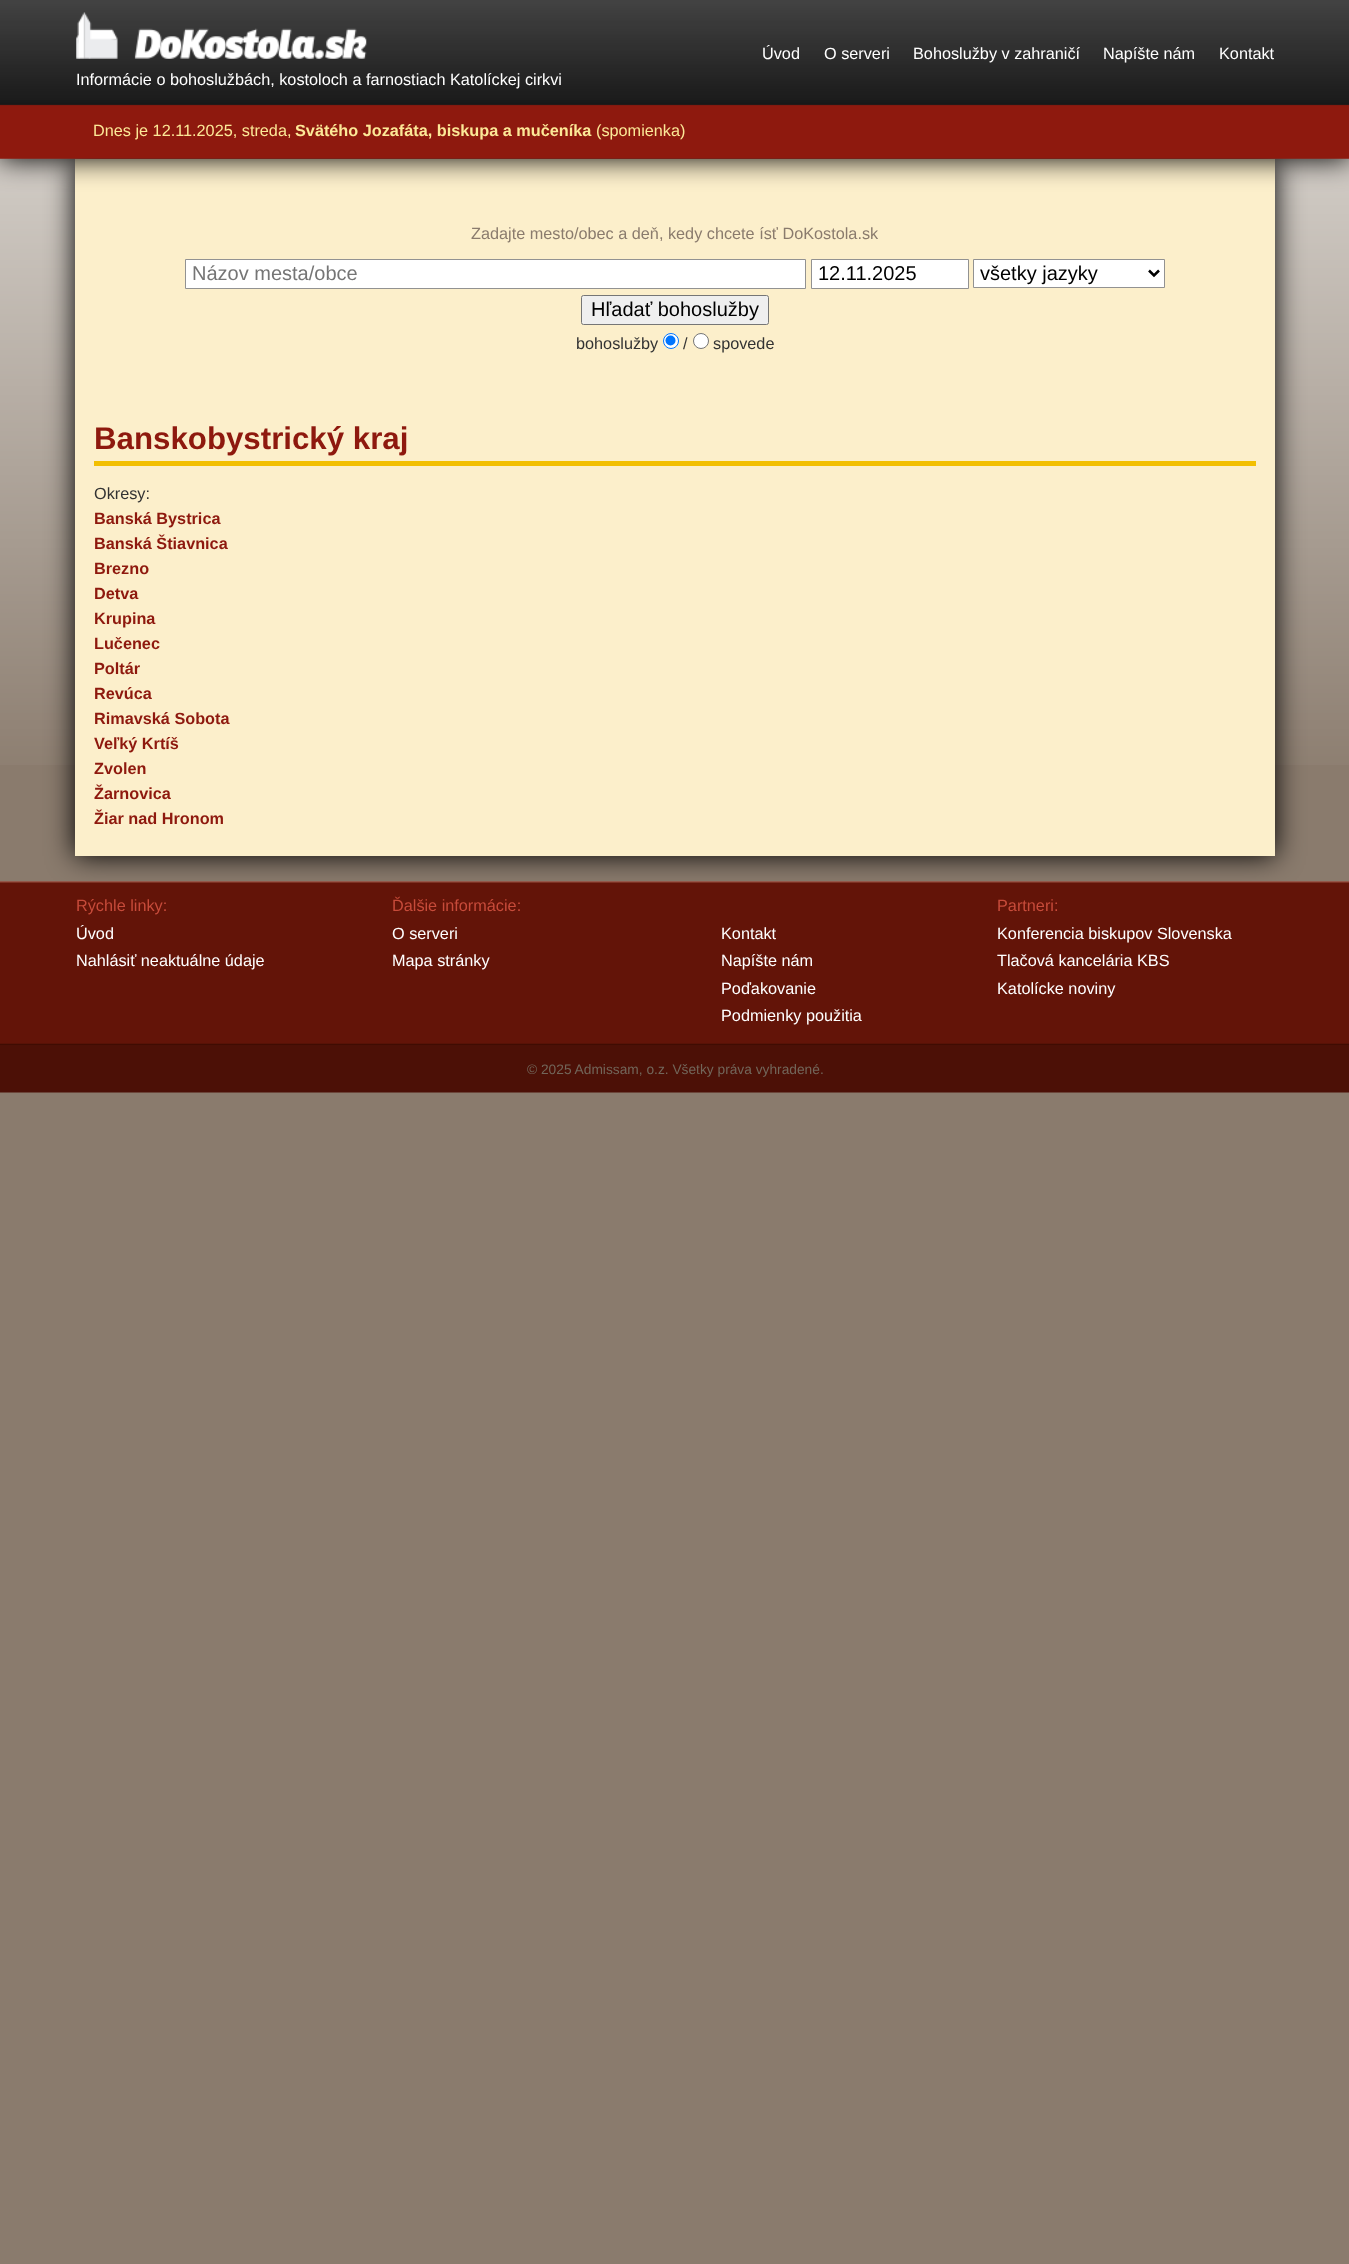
<svg xmlns="http://www.w3.org/2000/svg" width="1349" height="2264">
<style>
.a{font:16.25px Liberation Sans;fill:#fff}
.b{font:16.25px Liberation Sans;fill:#fce897}
.c{font:bold 16.25px Liberation Sans;fill:#fce897}
.d{font:16.25px Liberation Sans;fill:#8a7b6d}
.e{font:20px Liberation Sans;fill:#757575}
.f{font:20px Liberation Sans;fill:#000}
.g{font:16.25px Liberation Sans;fill:#333}
.h{font:bold 31.25px Liberation Sans;fill:#8e190e}
.i{font:bold 16.25px Liberation Sans;fill:#8e190e}
.j{font:16.25px Liberation Sans;fill:#c74b3a}
.k{font:13.75px Liberation Sans;fill:#72665a}
</style>
<rect width="100%" height="100%" fill="#8a7b6d"/>
<image href="1.png" x="0" y="158" width="1349" height="607"/>
<path fill="#000" filter="blur(14px)" d="M75 159h1200v697H75z"/>
<path fill="#fcefcb" d="M75 159h1200v697H75z"/>
<path fill="#000" filter="blur(14px)" d="M0 0h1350v159H0z"/>
<image href="2.png" x="0" y="0" width="1349" height="159"/>
<image href="3.png" x="76" y="12" width="291" height="47"/>
<path fill="#fff" stroke="#929292" d="M185.5 259.5h620v29H185.5z"/>
<path fill="#fff" stroke="#929292" d="M811.5 259.5h157v29H811.5z"/>
<path fill="#fff" stroke="#929292" d="M973.5 259.5h191v28H973.5z"/>
<path fill="none" stroke="#000" stroke-width="2.5" d="M1149 270.5l5 5l5-5"/>
<rect fill="#efefef" stroke="#767676" x="581.5" y="295.5" width="187" height="29" rx="2"/>
<circle fill="#fff" stroke="#0075ff" cx="671" cy="341" r="7.5"/>
<circle fill="#0075ff" cx="670.5" cy="340.5" r="5"/>
<circle fill="#fff" stroke="#767676" cx="701" cy="341" r="7.5"/>
<path fill="#f2bf01" d="M94 461h1162v5H94z"/>
<path fill="#8a7b6d" d="M77 881h1196v4H77z"/>
<image href="4.png" x="0" y="881" width="1349" height="212"/>
<text class="a" x="762" y="59">Úvod</text>
<text class="a" x="824" y="59">O serveri</text>
<text class="a" x="913" y="59">Bohoslužby v zahraničí</text>
<text class="a" x="1103" y="59">Napíšte nám</text>
<text class="a" x="1219" y="59">Kontakt</text>
<text class="a" x="76" y="85">Informácie o bohoslužbách, kostoloch a farnostiach Katolíckej cirkvi</text>
<text class="b" x="93" y="136">Dnes je 12.11.2025, streda,</text>
<text class="c" x="295" y="136">Svätého Jozafáta, biskupa a mučeníka</text>
<text class="b" x="596" y="136">(spomienka)</text>
<text class="d" x="471" y="239">Zadajte mesto/obec a deň, kedy chcete ísť DoKostola.sk</text>
<text class="e" x="192" y="280">Názov mesta/obce</text>
<text class="f" x="818" y="280">12.11.2025</text>
<text class="f" x="980" y="280">všetky jazyky</text>
<text class="f" x="591" y="316">Hľadať bohoslužby</text>
<text class="g" x="576" y="349">bohoslužby</text>
<text class="g" x="683" y="349">/</text>
<text class="g" x="713" y="349">spovede</text>
<text class="h" x="94" y="449">Banskobystrický kraj</text>
<text class="g" x="94" y="499">Okresy:</text>
<text class="i" x="94" y="524">Banská Bystrica</text>
<text class="i" x="94" y="549">Banská Štiavnica</text>
<text class="i" x="94" y="574">Brezno</text>
<text class="i" x="94" y="599">Detva</text>
<text class="i" x="94" y="624">Krupina</text>
<text class="i" x="94" y="649">Lučenec</text>
<text class="i" x="94" y="674">Poltár</text>
<text class="i" x="94" y="699">Revúca</text>
<text class="i" x="94" y="724">Rimavská Sobota</text>
<text class="i" x="94" y="749">Veľký Krtíš</text>
<text class="i" x="94" y="774">Zvolen</text>
<text class="i" x="94" y="799">Žarnovica</text>
<text class="i" x="94" y="824">Žiar nad Hronom</text>
<text class="j" x="76" y="911">Rýchle linky:</text>
<text class="a" x="76" y="939">Úvod</text>
<text class="a" x="76" y="966">Nahlásiť neaktuálne údaje</text>
<text class="j" x="392" y="911">Ďalšie informácie:</text>
<text class="a" x="392" y="939">O serveri</text>
<text class="a" x="392" y="966">Mapa stránky</text>
<text class="a" x="721" y="939">Kontakt</text>
<text class="a" x="721" y="966">Napíšte nám</text>
<text class="a" x="721" y="994">Poďakovanie</text>
<text class="a" x="721" y="1021">Podmienky použitia</text>
<text class="j" x="997" y="911">Partneri:</text>
<text class="a" x="997" y="939">Konferencia biskupov Slovenska</text>
<text class="a" x="997" y="966">Tlačová kancelária KBS</text>
<text class="a" x="997" y="994">Katolícke noviny</text>
<text class="k" x="527" y="1074">© 2025 Admissam, o.z. Všetky práva vyhradené.</text>
</svg>
